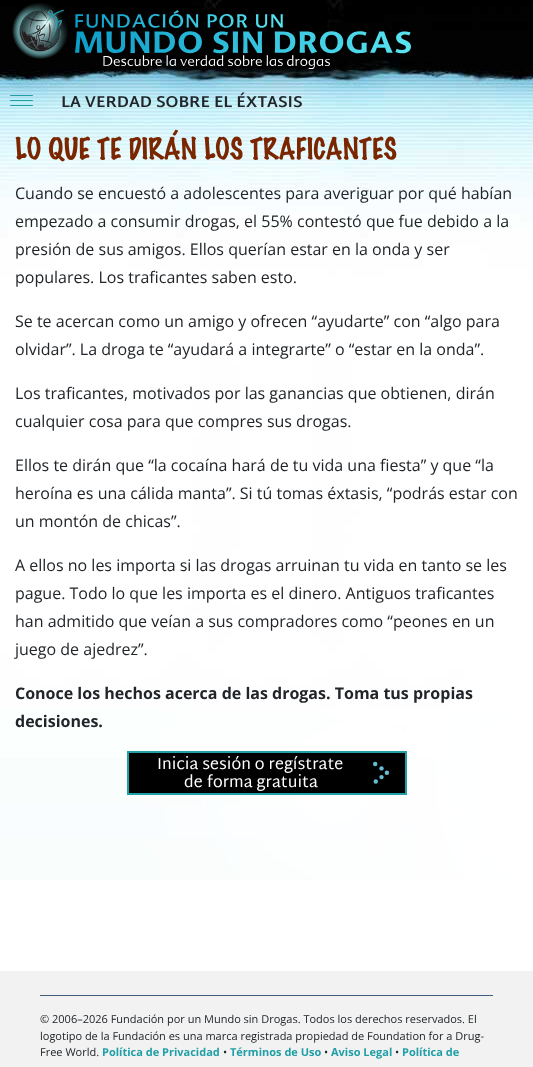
<svg xmlns="http://www.w3.org/2000/svg" width="533" height="1067">
<style>
.a{font:bold 16px Martel Sans;fill:#212529}
.b{font:500 27.25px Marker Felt;fill:#7a2600}
.c{font:16px Open Sans;fill:#212529}
.d{font:bold 16px Open Sans;fill:#212529}
.e{font:16px Martel Sans;fill:#fff}
.f{font:11px Open Sans;fill:#212529}
.g{font:bold 11px Open Sans;fill:#209fa6}
</style>
<rect width="100%" height="100%" fill="#fff"/>
<image href="1.png" x="0" y="0" width="533" height="880"/>
<image href="2.png" x="12" y="3" width="56" height="56"/>
<image href="3.png" x="75" y="10" width="336" height="59"/>
<rect fill="#209fa6" x="10" y="100" width="23" height="1" rx="0.5"/>
<rect fill="#209fa6" x="10" y="95" width="23" height="1" rx="0.5"/>
<rect fill="#209fa6" x="10" y="105" width="23" height="1" rx="0.5"/>
<path fill="#000" stroke="#209fa6" stroke-width="2" d="M128 752h278v42H128z"/>
<circle fill="#65bdd3" cx="375.2" cy="764" r="2.2"/>
<circle fill="#65bdd3" cx="381.5" cy="768.4" r="2.2"/>
<circle fill="#65bdd3" cx="386.9" cy="772.7" r="2.2"/>
<circle fill="#65bdd3" cx="381.5" cy="777.1" r="2.2"/>
<circle fill="#65bdd3" cx="375.8" cy="781.5" r="2.2"/>
<path fill="#f2f2f2" d="M0 971h533v96H0z"/>
<path fill="#405d7b" d="M40 995h453v1H40z"/>
<text class="a" x="61" y="107">LA VERDAD SOBRE EL ÉXTASIS</text>
<text class="b" x="15" y="159">LO QUE TE DIRÁN LOS TRAFICANTES</text>
<text class="c" x="15" y="199">Cuando se encuestó a adolescentes para averiguar por qué habían</text>
<text class="c" x="15" y="227">empezado a consumir drogas, el 55% contestó que fue debido a la</text>
<text class="c" x="15" y="255">presión de sus amigos. Ellos querían estar en la onda y ser</text>
<text class="c" x="15" y="283">populares. Los traficantes saben esto.</text>
<text class="c" x="15" y="327">Se te acercan como un amigo y ofrecen “ayudarte” con “algo para</text>
<text class="c" x="15" y="355">olvidar”. La droga te “ayudará a integrarte” o “estar en la onda”.</text>
<text class="c" x="15" y="399">Los traficantes, motivados por las ganancias que obtienen, dirán</text>
<text class="c" x="15" y="427">cualquier cosa para que compres sus drogas.</text>
<text class="c" x="15" y="471">Ellos te dirán que “la cocaína hará de tu vida una fiesta” y que “la</text>
<text class="c" x="15" y="499">heroína es una cálida manta”. Si tú tomas éxtasis, “podrás estar con</text>
<text class="c" x="15" y="527">un montón de chicas”.</text>
<text class="c" x="15" y="571">A ellos no les importa si las drogas arruinan tu vida en tanto se les</text>
<text class="c" x="15" y="599">pague. Todo lo que les importa es el dinero. Antiguos traficantes</text>
<text class="c" x="15" y="627">han admitido que veían a sus compradores como “peones en un</text>
<text class="c" x="15" y="655">juego de ajedrez”.</text>
<text class="d" x="15" y="699">Conoce los hechos acerca de las drogas. Toma tus propias</text>
<text class="d" x="15" y="727">decisiones.</text>
<text class="e" x="157" y="769">Inicia sesión o regístrate</text>
<text class="e" x="184" y="787">de forma gratuita</text>
<text class="f" x="40" y="1023">© 2006–2026 Fundación por un Mundo sin Drogas. Todos los derechos reservados. El</text>
<text class="f" x="40" y="1040">logotipo de la Fundación es una marca registrada propiedad de Foundation for a Drug-</text>
<text class="f" x="40" y="1056">Free World.</text>
<text class="g" x="102" y="1056">Política de Privacidad</text>
<text class="f" x="223" y="1056">•</text>
<text class="g" x="230" y="1056">Términos de Uso</text>
<text class="f" x="324" y="1056">•</text>
<text class="g" x="331" y="1056">Aviso Legal</text>
<text class="f" x="395" y="1056">•</text>
<text class="g" x="402" y="1056">Política de</text>
</svg>
